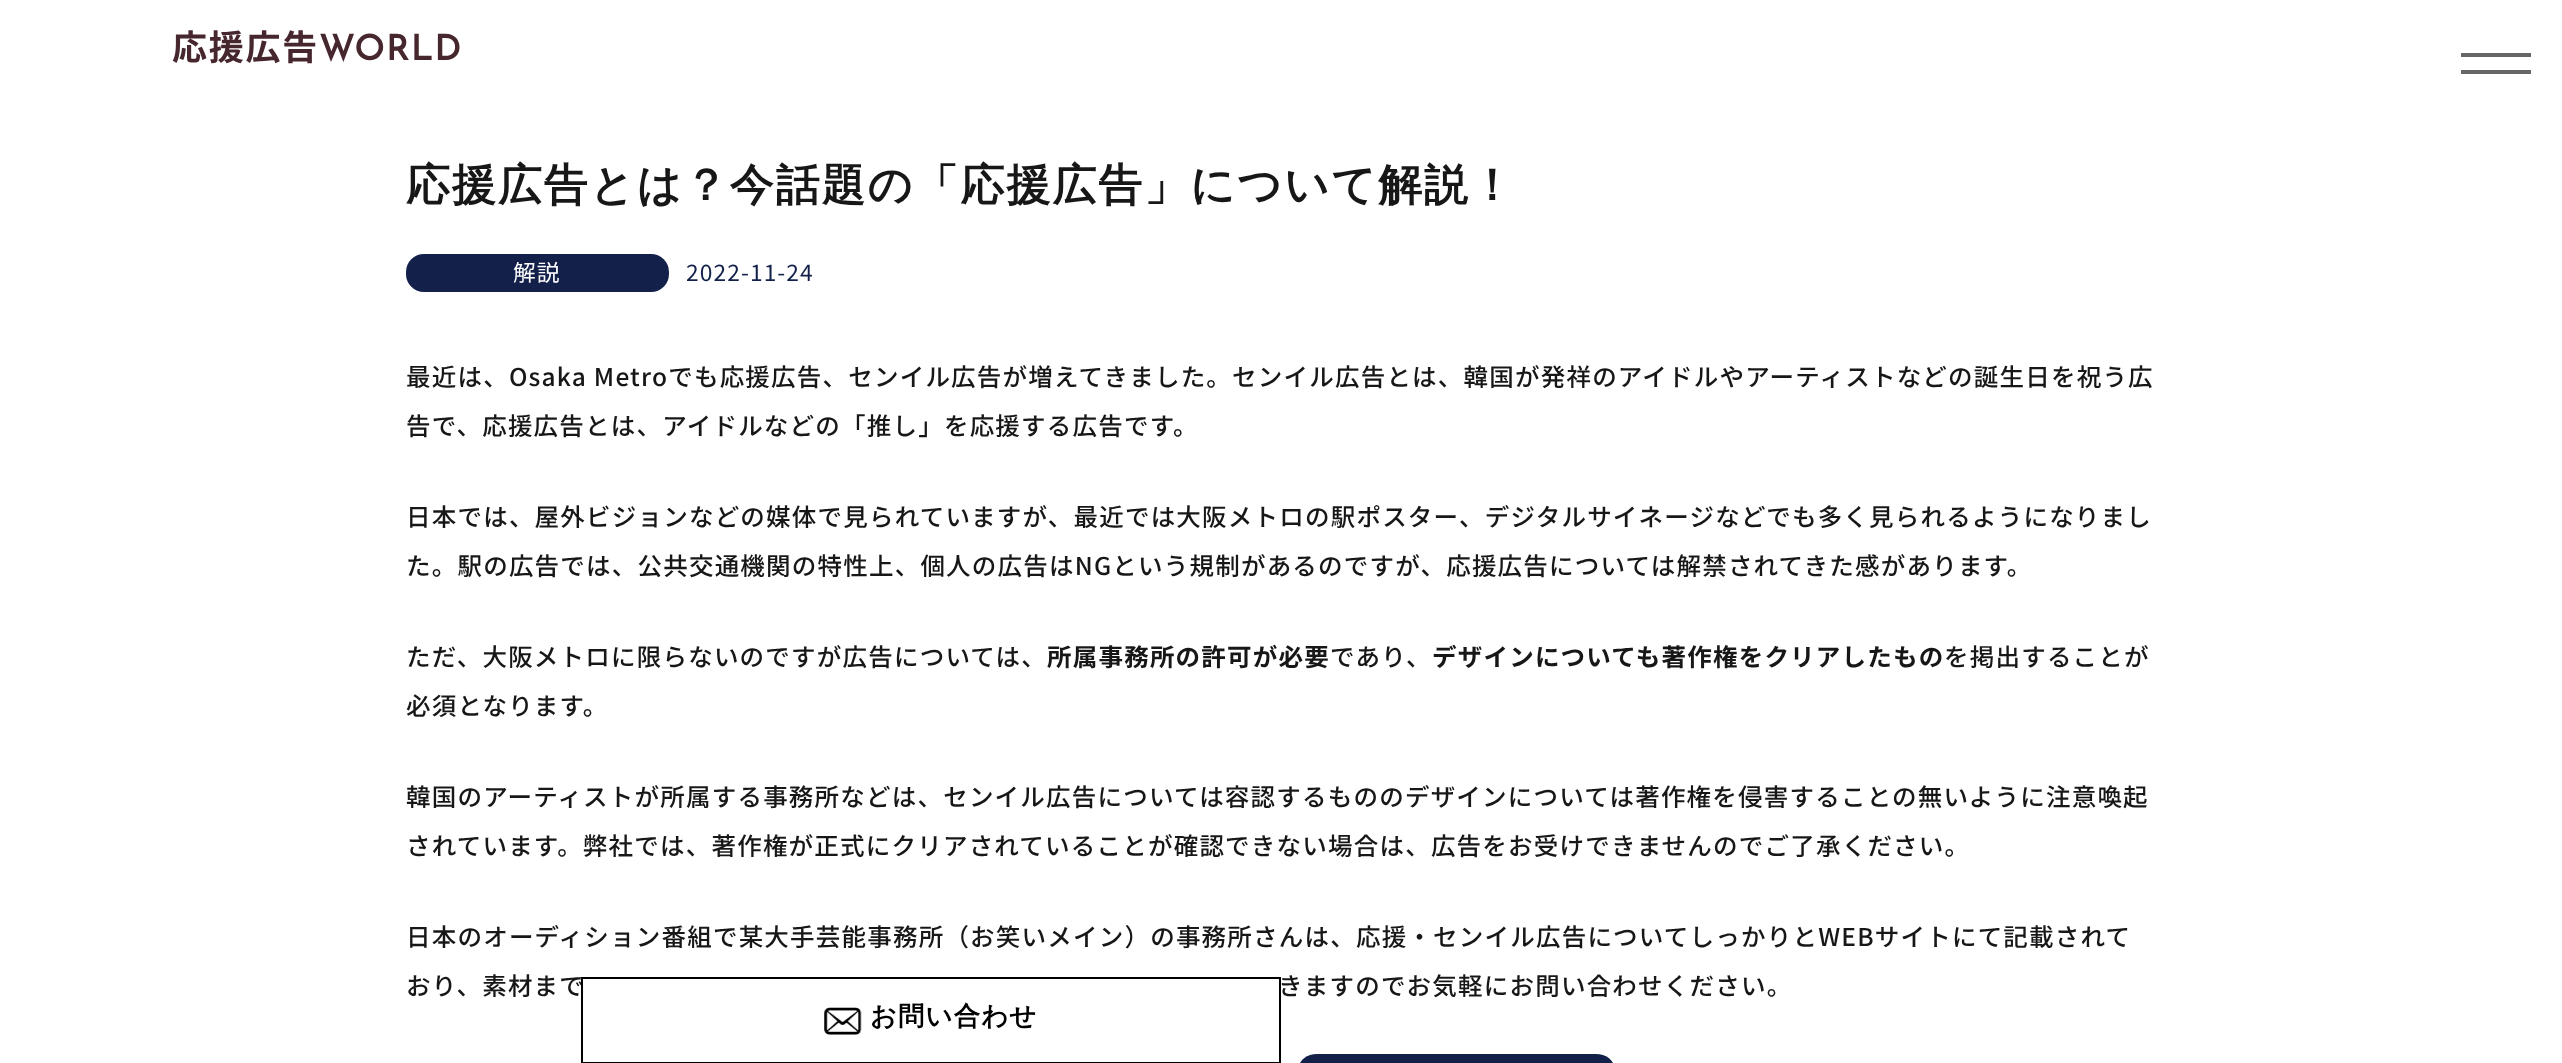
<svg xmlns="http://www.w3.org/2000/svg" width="2562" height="1063">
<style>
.a{font:bold 35px Noto Sans JP;letter-spacing:1.75px;fill:#47272e}
.b{font:bold 35px Josefin Sans;letter-spacing:1.75px;fill:#47272e}
.c{font:bold 43.75px WenQuanYi Zen Hei;letter-spacing:2.2px;fill:#171717}
.d{font:22.75px Noto Sans JP;letter-spacing:1.1px;fill:#fff}
.e{font:22.75px Noto Sans JP;letter-spacing:1.1px;fill:#12204a}
.f{font:500 24.5px Noto Sans JP;letter-spacing:1.22px;fill:#171717}
.g{font:bold 24.5px Noto Sans JP;letter-spacing:1.22px;fill:#171717}
.h{font:bold 26.25px WenQuanYi Zen Hei;letter-spacing:1.25px;fill:#000}
</style>
<rect width="100%" height="100%" fill="#fff"/>
<path fill="#666" d="M2461 53h70v4H2461z"/>
<path fill="#666" d="M2461 70h70v4H2461z"/>
<rect fill="#12204a" x="406" y="254" width="263" height="38" rx="18"/>
<rect fill="#12204a" x="1299" y="1054" width="315" height="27" rx="18"/>
<text class="a" x="172" y="60">応援広告</text>
<text class="b" x="319" y="60">WORLD</text>
<text class="c" x="406" y="200">応援広告とは？今話題の「応援広告」について解説！</text>
<text class="d" x="513" y="281">解説</text>
<text class="e" x="686" y="281">2022-11-24</text>
<text class="f" x="406" y="386">最近は、Osaka Metroでも応援広告、センイル広告が増えてきました。センイル広告とは、韓国が発祥のアイドルやアーティストなどの誕生日を祝う広</text>
<text class="f" x="406" y="435">告で、応援広告とは、アイドルなどの「推し」を応援する広告です。</text>
<text class="f" x="406" y="526">日本では、屋外ビジョンなどの媒体で見られていますが、最近では大阪メトロの駅ポスター、デジタルサイネージなどでも多く見られるようになりまし</text>
<text class="f" x="406" y="575">た。駅の広告では、公共交通機関の特性上、個人の広告はNGという規制があるのですが、応援広告については解禁されてきた感があります。</text>
<text class="f" x="406" y="666">ただ、大阪メトロに限らないのですが広告については、</text>
<text class="g" x="1047" y="666">所属事務所の許可が必要</text>
<text class="f" x="1330" y="666">であり、</text>
<text class="g" x="1432" y="666">デザインについても著作権をクリアしたもの</text>
<text class="f" x="1944" y="666">を掲出することが</text>
<text class="f" x="406" y="715">必須となります。</text>
<text class="f" x="406" y="806">韓国のアーティストが所属する事務所などは、センイル広告については容認するもののデザインについては著作権を侵害することの無いように注意喚起</text>
<text class="f" x="406" y="855">されています。弊社では、著作権が正式にクリアされていることが確認できない場合は、広告をお受けできませんのでご了承ください。</text>
<text class="f" x="406" y="946">日本のオーディション番組で某大手芸能事務所（お笑いメイン）の事務所さんは、応援・センイル広告についてしっかりとWEBサイトにて記載されて</text>
<text class="f" x="406" y="995">おり、素材まで</text>
<text class="f" x="1278" y="995">きますのでお気軽にお問い合わせください。</text>
<path fill="none" stroke="#000" stroke-width="2" d="M582 978h698v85H582z"/>
<image href="1.png" x="824" y="1007" width="38" height="28"/>
<text class="h" x="870" y="1025">お問い合わせ</text>
</svg>
